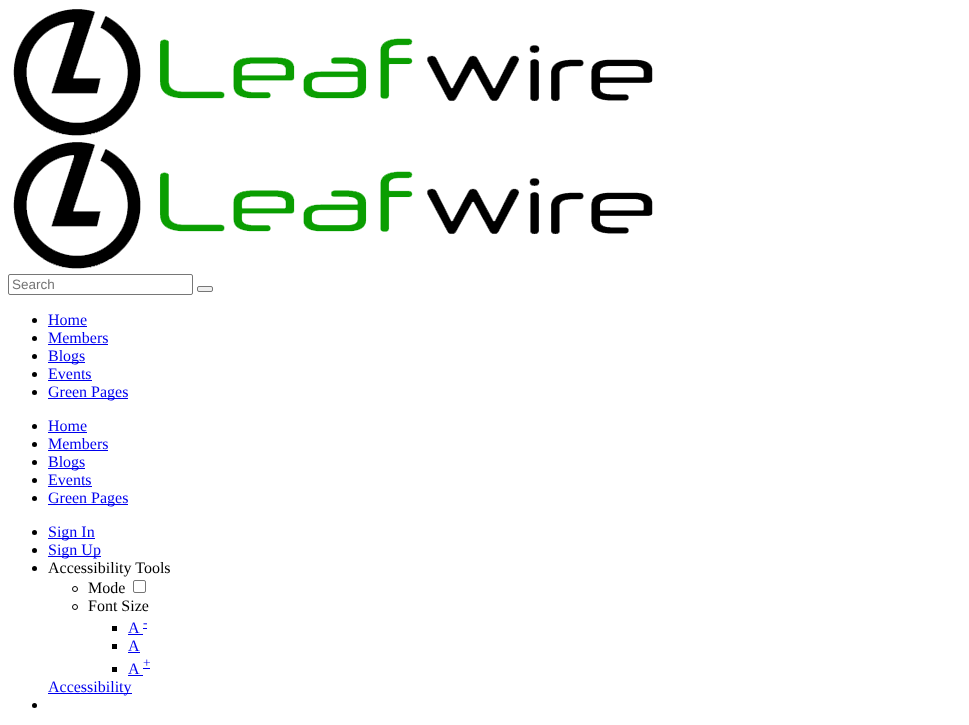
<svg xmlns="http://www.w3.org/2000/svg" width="969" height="725">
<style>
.a{font:13.5px Liberation Sans;fill:#757575}
.b{font:16px Liberation Serif;fill:#00e}
.c{font:16px Liberation Serif;fill:#000}
.d{font:13.5px Liberation Serif;fill:#00e}
</style>
<rect width="100%" height="100%" fill="#fff"/>
<image href="1.png" x="13" y="9" width="640" height="127"/>
<image href="1.png" x="13" y="142" width="640" height="127"/>
<rect fill="none" stroke="#767676" x="8.5" y="274.5" width="184" height="20" rx="1.5"/>
<rect fill="#efefef" stroke="#767676" x="197.5" y="286.5" width="15" height="5" rx="1.5"/>
<circle fill="#000" cx="34.5" cy="320.5" r="2.5"/>
<path fill="#00e" d="M48 326h39v1H48z"/>
<circle fill="#000" cx="34.5" cy="338.5" r="2.5"/>
<path fill="#00e" d="M48 344h60v1H48z"/>
<circle fill="#000" cx="34.5" cy="356.5" r="2.5"/>
<path fill="#00e" d="M48 362h37v1H48z"/>
<circle fill="#000" cx="34.5" cy="374.5" r="2.5"/>
<path fill="#00e" d="M48 380h44v1H48z"/>
<circle fill="#000" cx="34.5" cy="392.5" r="2.5"/>
<path fill="#00e" d="M48 398h80v1H48z"/>
<circle fill="#000" cx="34.5" cy="426.5" r="2.5"/>
<path fill="#00e" d="M48 432h39v1H48z"/>
<circle fill="#000" cx="34.5" cy="444.5" r="2.5"/>
<path fill="#00e" d="M48 450h60v1H48z"/>
<circle fill="#000" cx="34.5" cy="462.5" r="2.5"/>
<path fill="#00e" d="M48 468h37v1H48z"/>
<circle fill="#000" cx="34.5" cy="480.5" r="2.5"/>
<path fill="#00e" d="M48 486h44v1H48z"/>
<circle fill="#000" cx="34.5" cy="498.5" r="2.5"/>
<path fill="#00e" d="M48 504h80v1H48z"/>
<circle fill="#000" cx="34.5" cy="532.5" r="2.5"/>
<path fill="#00e" d="M48 538h47v1H48z"/>
<circle fill="#000" cx="34.5" cy="550.5" r="2.5"/>
<path fill="#00e" d="M48 556h53v1H48z"/>
<circle fill="#000" cx="34.5" cy="568.5" r="2.5"/>
<circle fill="none" stroke="#000" cx="75" cy="589" r="2.5"/>
<rect fill="none" stroke="#767676" x="133.5" y="580.5" width="12" height="12" rx="1.5"/>
<circle fill="none" stroke="#000" cx="75" cy="607" r="2.5"/>
<path fill="#00e" d="M128 634h15v1H128z"/>
<path fill="#00e" d="M143 628h4v1H143z"/>
<path fill="#000" d="M112 626h5v5H112z"/>
<path fill="#000" d="M112 644h5v5H112z"/>
<path fill="#00e" d="M128 652h12v1H128z"/>
<path fill="#000" d="M112 667h5v5H112z"/>
<path fill="#00e" d="M128 675h15v1H128z"/>
<path fill="#00e" d="M143 668h7v1H143z"/>
<path fill="#00e" d="M48 693h84v1H48z"/>
<circle fill="#000" cx="34.5" cy="705.5" r="2.5"/>
<text class="a" x="12" y="289">Search</text>
<text class="b" x="48" y="325">Home</text>
<text class="b" x="48" y="343">Members</text>
<text class="b" x="48" y="361">Blogs</text>
<text class="b" x="48" y="379">Events</text>
<text class="b" x="48" y="397">Green Pages</text>
<text class="b" x="48" y="431">Home</text>
<text class="b" x="48" y="449">Members</text>
<text class="b" x="48" y="467">Blogs</text>
<text class="b" x="48" y="485">Events</text>
<text class="b" x="48" y="503">Green Pages</text>
<text class="b" x="48" y="537">Sign In</text>
<text class="b" x="48" y="555">Sign Up</text>
<text class="c" x="48" y="573">Accessibility Tools</text>
<text class="c" x="88" y="593">Mode</text>
<text class="c" x="88" y="611">Font Size</text>
<text class="b" x="128" y="633">A</text>
<text class="d" x="143" y="627">-</text>
<text class="b" x="128" y="651">A</text>
<text class="b" x="128" y="674">A</text>
<text class="d" x="143" y="667">+</text>
<text class="b" x="48" y="692">Accessibility</text>
</svg>
